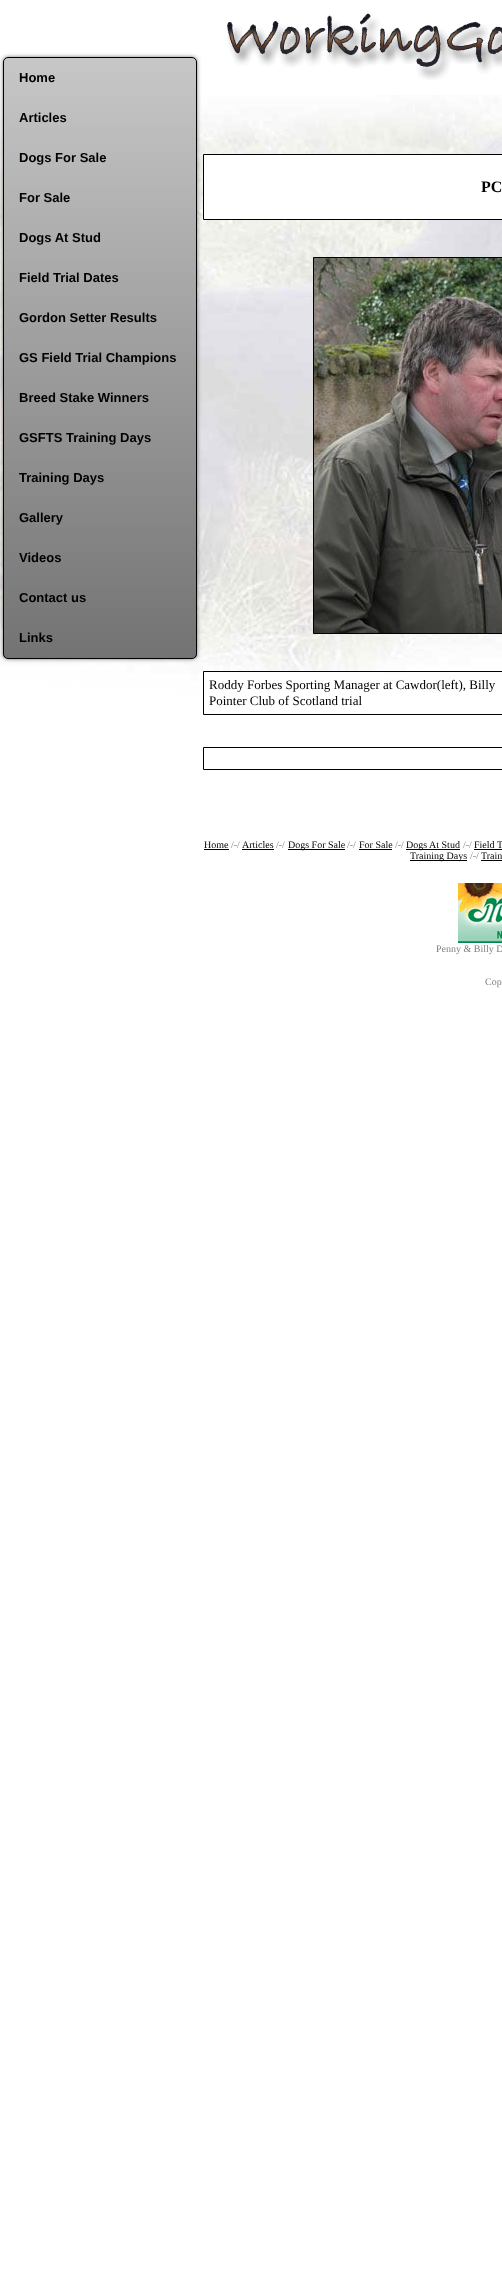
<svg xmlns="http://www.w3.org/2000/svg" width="502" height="2285">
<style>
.a{font:bold 13px Liberation Sans;fill:#000}
.b{font:bold 16px Liberation Serif;fill:#000}
.c{font:13px Liberation Serif;fill:#000}
.d{font:10px Liberation Serif;fill:#000}
.e{font:10px Liberation Serif;fill:#808080}
</style>
<defs>
<clipPath id="clip1"><rect x="3" y="57" width="194" height="602" rx="5"/></clipPath>
<linearGradient id="g1" gradientUnits="userSpaceOnUse" x1="100" y1="58" x2="100" y2="658"><stop offset="0" stop-color="#c7c7c7"/><stop offset="1" stop-color="#737373"/></linearGradient>
</defs>
<rect width="100%" height="100%" fill="#fff"/>
<image href="1.png" x="0" y="95" width="502" height="602"/>
<rect fill="#333" filter="blur(2.5px)" x="4" y="58" width="192" height="600" rx="4"/>
<g clip-path="url(#clip1)">
<path fill="url(#g1)" d="M3 58h194v600H3z"/>
</g>
<rect fill="none" stroke="#000" x="3.5" y="57.5" width="193" height="601" rx="4.5"/>
<image href="2.png" x="227" y="13" width="275" height="67"/>
<path fill="#fff" stroke="#000" d="M203.5 154.5h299v65H203.5z"/>
<path fill="none" stroke="#000" d="M313.5 257.5h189v376H313.5z"/>
<image href="3.png" x="314" y="258" width="188" height="375"/>
<path fill="#fff" d="M207 672h176v25H207z"/>
<path fill="none" stroke="#000" d="M203.5 671.5h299v43H203.5z"/>
<path fill="none" stroke="#000" d="M203.5 747.5h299v22H203.5z"/>
<path fill="#000" d="M204 849h25v1H204z"/>
<path fill="#000" d="M242 849h32v1H242z"/>
<path fill="#000" d="M288 849h57v1H288z"/>
<path fill="#000" d="M359 849h33v1H359z"/>
<path fill="#000" d="M406 849h54v1H406z"/>
<path fill="#000" d="M474 849h28v1H474z"/>
<path fill="#000" d="M410 860h57v1H410z"/>
<path fill="#000" d="M481 860h21v1H481z"/>
<image href="4.png" x="458" y="883" width="44" height="60"/>
<text class="a" x="19" y="82">Home</text>
<text class="a" x="19" y="122">Articles</text>
<text class="a" x="19" y="162">Dogs For Sale</text>
<text class="a" x="19" y="202">For Sale</text>
<text class="a" x="19" y="242">Dogs At Stud</text>
<text class="a" x="19" y="282">Field Trial Dates</text>
<text class="a" x="19" y="322">Gordon Setter Results</text>
<text class="a" x="19" y="362">GS Field Trial Champions</text>
<text class="a" x="19" y="402">Breed Stake Winners</text>
<text class="a" x="19" y="442">GSFTS Training Days</text>
<text class="a" x="19" y="482">Training Days</text>
<text class="a" x="19" y="522">Gallery</text>
<text class="a" x="19" y="562">Videos</text>
<text class="a" x="19" y="602">Contact us</text>
<text class="a" x="19" y="642">Links</text>
<text class="b" x="481" y="192">PC</text>
<text class="c" x="209" y="689">Roddy Forbes Sporting Manager at Cawdor(left), Billy</text>
<text class="c" x="209" y="705">Pointer Club of Scotland trial</text>
<text class="d" x="204" y="848">Home</text>
<text class="e" x="231" y="848">/-/</text>
<text class="d" x="242" y="848">Articles</text>
<text class="e" x="276" y="848">/-/</text>
<text class="d" x="288" y="848">Dogs For Sale</text>
<text class="e" x="347" y="848">/-/</text>
<text class="d" x="359" y="848">For Sale</text>
<text class="e" x="395" y="848">/-/</text>
<text class="d" x="406" y="848">Dogs At Stud</text>
<text class="e" x="463" y="848">/-/</text>
<text class="d" x="474" y="848">Field T</text>
<text class="d" x="410" y="859">Training Days</text>
<text class="e" x="470" y="859">/-/</text>
<text class="d" x="481" y="859">Train</text>
<text class="e" x="436" y="952">Penny &amp; Billy D</text>
<text class="e" x="485" y="985">Cop</text>
</svg>
